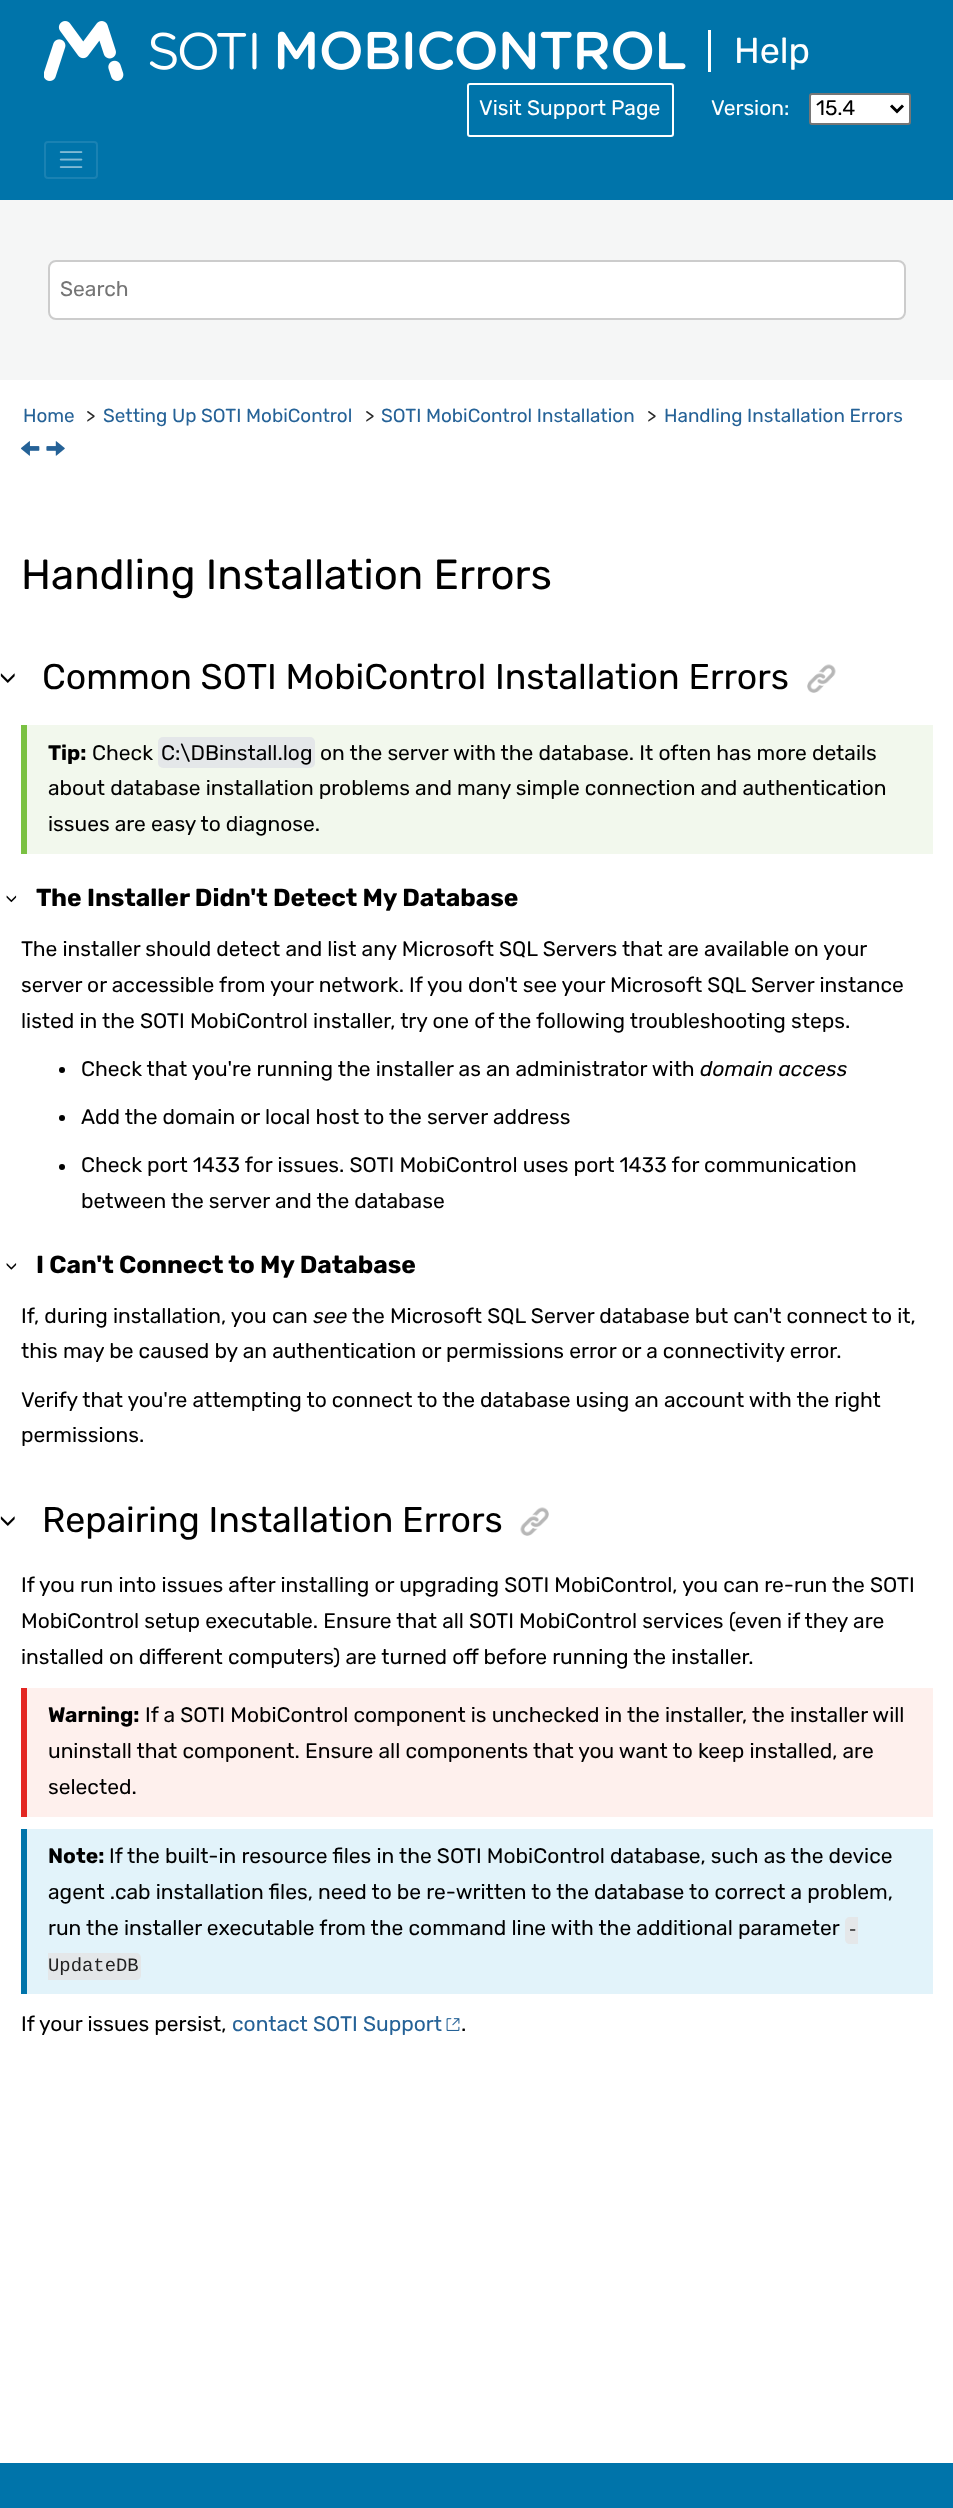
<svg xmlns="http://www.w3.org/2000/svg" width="953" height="2508">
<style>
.a{font:36px Rubik;fill:#fff}
.b{font:21px Rubik;fill:#fff}
.c{font:21px Rubik;fill:#000}
.d{font:21px Rubik;fill:#757575}
.e{font:18.9px Rubik;fill:#256297}
.f{font:18.9px Rubik;fill:#292929}
.g{font:42px Rubik;fill:#000}
.h{font:35.7px Rubik;fill:#000}
.i{font:bold 21px Rubik;fill:#000}
.j{font:bold 24.6px Rubik;fill:#000}
.k{font:italic 21px Rubik;fill:#000}
.l{font:18.9px Liberation Mono;fill:#222}
.m{font:21px Rubik;fill:#256297}
</style>
<rect width="100%" height="100%" fill="#fff"/>
<path fill="#0074aa" d="M0 0h953v200H0z"/>
<image href="1.png" x="44" y="21" width="642" height="60"/>
<path fill="#fff" d="M708 30h3v42H708z"/>
<rect fill="none" stroke="#fff" stroke-width="2" x="468" y="84" width="205" height="52" rx="2"/>
<rect fill="#fff" stroke="#767676" stroke-width="2" x="810" y="94" width="100" height="30" rx="2"/>
<path fill="none" stroke="#000" stroke-width="3" d="M891 105.5l6 6l6-6"/>
<rect fill="none" stroke="#1a82b3" stroke-width="2" x="45" y="142" width="52" height="36" rx="3"/>
<image href="2.png" x="59" y="151" width="24" height="17"/>
<path fill="#f5f6f6" d="M0 200h953v180H0z"/>
<rect fill="#fff" stroke="#ccc" stroke-width="2" x="49" y="261" width="856" height="58" rx="7"/>
<image href="3.png" x="21" y="441" width="19" height="15"/>
<image href="4.png" x="46" y="441" width="19" height="15"/>
<image href="5.png" x="0" y="673" width="15" height="10"/>
<image href="6.png" x="807" y="664" width="29" height="29"/>
<path fill="#f2f8ed" d="M27 725h906v129H27z"/>
<path fill="#7ac142" d="M21 725h6v129H21z"/>
<rect fill="#e4e7e9" x="158" y="737" width="157" height="31" rx="5"/>
<image href="7.png" x="6" y="895" width="11" height="8"/>
<circle fill="#000" cx="62" cy="1070" r="3"/>
<circle fill="#000" cx="62" cy="1118" r="3"/>
<circle fill="#000" cx="62" cy="1167" r="3"/>
<image href="8.png" x="6" y="1263" width="11" height="7"/>
<image href="5.png" x="0" y="1516" width="15" height="10"/>
<image href="9.png" x="520" y="1507" width="29" height="29"/>
<path fill="#fef0ed" d="M27 1688h906v129H27z"/>
<path fill="#e32722" d="M21 1688h6v129H21z"/>
<path fill="#e2f3fa" d="M27 1829h906v165H27z"/>
<path fill="#0074aa" d="M21 1829h6v165H21z"/>
<path fill="#e4e7e9" d="M850 1917h8v27h-8c-3 0-5-2-5-5v-17c0-3 2-5 5-5z"/>
<path fill="#e4e7e9" d="M48 1953h88c3 0 5 2 5 5v17c0 3-2 5-5 5h-88z"/>
<image href="10.png" x="446" y="2018" width="14" height="13"/>
<path fill="#0074aa" d="M0 2463h953v45H0z"/>
<text class="a" x="734" y="63">Help</text>
<text class="b" x="479" y="115">Visit Support Page</text>
<text class="b" x="711" y="115">Version:</text>
<text class="c" x="816" y="115">15.4</text>
<text class="d" x="60" y="296">Search</text>
<text class="e" x="23" y="422">Home</text>
<text class="f" x="86" y="422">&gt;</text>
<text class="e" x="103" y="422">Setting Up SOTI MobiControl</text>
<text class="f" x="365" y="422">&gt;</text>
<text class="e" x="381" y="422">SOTI MobiControl Installation</text>
<text class="f" x="647" y="422">&gt;</text>
<text class="e" x="664" y="422">Handling Installation Errors</text>
<text class="g" x="21" y="589">Handling Installation Errors</text>
<text class="h" x="42" y="689">Common SOTI MobiControl Installation Errors</text>
<text class="i" x="48" y="760">Tip:</text>
<text class="c" x="92" y="760">Check</text>
<text class="c" x="161" y="760">C:\DBinstall.log</text>
<text class="c" x="320" y="760">on the server with the database. It often has more details</text>
<text class="c" x="48" y="795">about database installation problems and many simple connection and authentication</text>
<text class="c" x="48" y="831">issues are easy to diagnose.</text>
<text class="j" x="36" y="906">The Installer Didn't Detect My Database</text>
<text class="c" x="21" y="956">The installer should detect and list any Microsoft SQL Servers that are available</text>
<text class="c" x="794" y="956">on your</text>
<text class="c" x="21" y="992">server or accessible from your network. If you don't see your Microsoft SQL Server instance</text>
<text class="c" x="21" y="1028">listed in the SOTI MobiControl installer, try one of the following troubleshooting steps.</text>
<text class="c" x="81" y="1076">Check that you're running the installer as an administrator with</text>
<text class="k" x="700" y="1076">domain access</text>
<text class="c" x="81" y="1124">Add the domain or local host to the server address</text>
<text class="c" x="81" y="1172">Check port 1433 for issues. SOTI MobiControl uses port 1433 for communication</text>
<text class="c" x="81" y="1208">between the server and the database</text>
<text class="j" x="36" y="1273">I Can't Connect to My Database</text>
<text class="c" x="21" y="1323">If, during installation, you can</text>
<text class="k" x="313" y="1323">see</text>
<text class="c" x="352" y="1323">the Microsoft SQL Server database but can't connect to it,</text>
<text class="c" x="21" y="1358">this may be caused by an authentication or permissions error or a connectivity error.</text>
<text class="c" x="21" y="1407">Verify that you're attempting to connect to the database using an account with the right</text>
<text class="c" x="21" y="1442">permissions.</text>
<text class="h" x="42" y="1532">Repairing Installation Errors</text>
<text class="c" x="21" y="1592">If you run into issues after installing or upgrading SOTI MobiControl, you can re-run the SOTI</text>
<text class="c" x="21" y="1628">MobiControl setup executable. Ensure that all SOTI MobiControl services (even if they are</text>
<text class="c" x="21" y="1664">installed on different computers) are turned off before running the installer.</text>
<text class="i" x="48" y="1722">Warning:</text>
<text class="c" x="145" y="1722">If a SOTI MobiControl component is unchecked in the installer, the installer will</text>
<text class="c" x="48" y="1758">uninstall that component. Ensure all components that you want to keep installed, are</text>
<text class="c" x="48" y="1794">selected.</text>
<text class="i" x="48" y="1863">Note:</text>
<text class="c" x="109" y="1863">If the built-in resource files in the SOTI MobiControl database, such as the device</text>
<text class="c" x="48" y="1899">agent .cab installation files, need to be re-written to the database to correct a problem,</text>
<text class="c" x="48" y="1935">run the installer executable from the command line with the additional parameter</text>
<text class="l" x="847" y="1935">-</text>
<text class="l" x="48" y="1971">UpdateDB</text>
<text class="c" x="21" y="2031">If your issues persist,</text>
<text class="m" x="232" y="2031">contact SOTI Support</text>
<text class="c" x="461" y="2031">.</text>
</svg>
